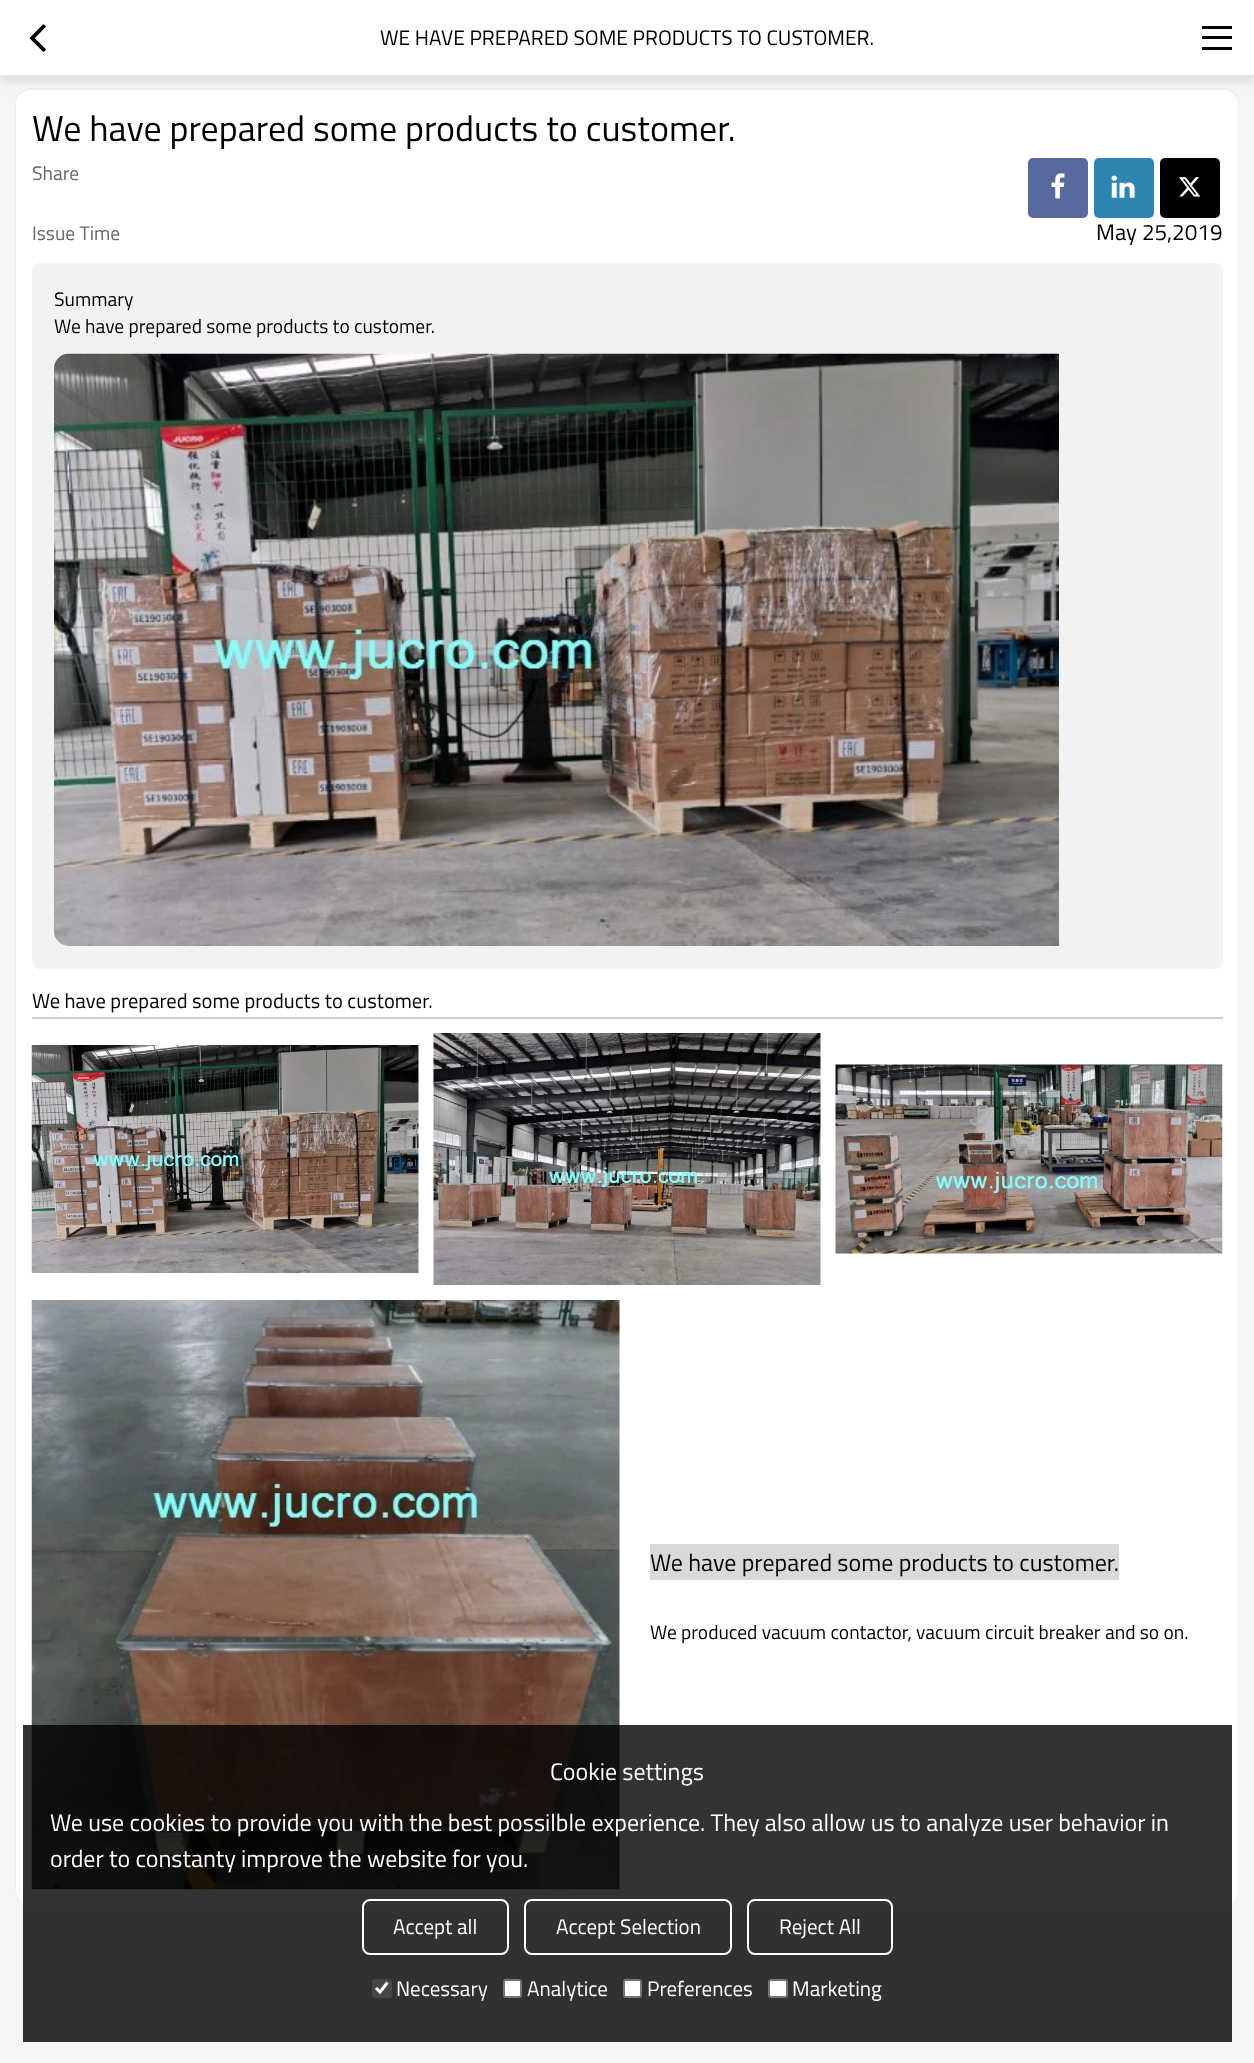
<svg xmlns="http://www.w3.org/2000/svg" width="1254" height="2063">
<style>
.a{font:21px Titillium Web;fill:#000}
.b{font:36px Titillium Web;fill:#000}
.c{font:19.5px Titillium Web;fill:#666}
.d{font:22.5px Titillium Web;fill:#000}
.e{font:19.5px Titillium Web;fill:#000}
.f{font:20.5px Titillium Web;fill:#000}
.g{font:24px Titillium Web;fill:#000}
.h{font:24px Titillium Web;fill:#fff}
.i{font:21px Titillium Web;fill:#fff}
</style>
<rect width="100%" height="100%" fill="#f5f5f5"/>
<rect fill="#fff" x="15" y="89" width="1224" height="1816" rx="15"/>
<path fill="#eee" fill-rule="evenodd" d="M30 88h1194c8 0 15 7 15 16v1786c0 8-7 15-15 15h-1194c-8 0-15-7-15-15v-1786c0-9 7-16 15-16zm0 2h1194c7 0 14 6 14 14v1786c0 8-7 15-14 15h-1194c-7 0-14-7-14-15v-1786c0-8 7-14 14-14z"/>
<path fill="#0000001a" filter="blur(4px)" d="M0 5h1254v76H0z"/>
<path fill="#fff" d="M0 0h1254v75H0z"/>
<path fill="#e5e5e5" d="M0 75h1254v2H0z"/>
<image href="1.png" x="29" y="24" width="17" height="28"/>
<path fill="#000" d="M1202 26h30v3H1202z"/>
<path fill="#000" d="M1202 36h30v3H1202z"/>
<path fill="#000" d="M1202 47h30v3H1202z"/>
<rect fill="#59699e" x="1028" y="158" width="60" height="60" rx="5"/>
<image href="2.png" x="1051" y="173" width="14" height="26"/>
<rect fill="#2f85b2" x="1094" y="158" width="60" height="60" rx="5"/>
<image href="3.png" x="1111" y="175" width="24" height="23"/>
<rect fill="#000" x="1160" y="158" width="60" height="60" rx="5"/>
<image href="4.png" x="1179" y="177" width="22" height="20"/>
<rect fill="#f2f2f2" x="32" y="263" width="1191" height="706" rx="8"/>
<image href="5.png" x="54" y="353" width="1005" height="593"/>
<path fill="#cecece" d="M32 1017h1191v2H32z"/>
<image href="6.png" x="31" y="1045" width="388" height="228"/>
<image href="7.png" x="433" y="1033" width="388" height="252"/>
<image href="8.png" x="835" y="1064" width="388" height="190"/>
<image href="9.png" x="31" y="1300" width="589" height="590"/>
<path fill="#d9d9d9" d="M650 1544h469v36H650z"/>
<path fill="#000000cc" d="M23 1725h1209v317H23z"/>
<rect fill="none" stroke="#fff" stroke-width="2" x="363" y="1900" width="145" height="54" rx="7"/>
<rect fill="none" stroke="#fff" stroke-width="2" x="525" y="1900" width="206" height="54" rx="7"/>
<rect fill="none" stroke="#fff" stroke-width="2" x="748" y="1900" width="144" height="54" rx="7"/>
<rect fill="#464646" x="372" y="1979" width="20" height="19" rx="3"/>
<path fill="none" stroke="#fff" stroke-width="3.1" d="M376 1988l4 4l7.5-9.5"/>
<rect fill="#fff" stroke="#767676" stroke-width="2" x="504" y="1980" width="17" height="17" rx="2"/>
<rect fill="#fff" stroke="#767676" stroke-width="2" x="624" y="1980" width="17" height="17" rx="2"/>
<rect fill="#fff" stroke="#767676" stroke-width="2" x="769" y="1980" width="18" height="17" rx="2"/>
<text class="a" x="380" y="45">WE HAVE PREPARED SOME PRODUCTS TO CUSTOMER.</text>
<text class="b" x="32" y="141">We have prepared some products to customer.</text>
<text class="c" x="32" y="180">Share</text>
<text class="c" x="32" y="240">Issue Time</text>
<text class="d" x="1096" y="240">May 25,2019</text>
<text class="e" x="54" y="306">Summary</text>
<text class="e" x="54" y="333">We have prepared some products to customer.</text>
<text class="f" x="32" y="1008">We have prepared some products to customer.</text>
<text class="g" x="650" y="1571">We have prepared some products to customer.</text>
<text class="e" x="650" y="1639">We produced vacuum contactor, vacuum circuit breaker and so on.</text>
<text class="h" x="550" y="1780">Cookie settings</text>
<text class="h" x="50" y="1831">We use cookies to provide you with the best possilble experience. They also allow us to analyze user behavior in</text>
<text class="h" x="50" y="1867">order to constanty improve the website for you.</text>
<text class="i" x="393" y="1934">Accept all</text>
<text class="i" x="556" y="1934">Accept Selection</text>
<text class="i" x="779" y="1934">Reject All</text>
<text class="i" x="396" y="1996">Necessary</text>
<text class="i" x="527" y="1996">Analytice</text>
<text class="i" x="647" y="1996">Preferences</text>
<text class="i" x="792" y="1996">Marketing</text>
</svg>
